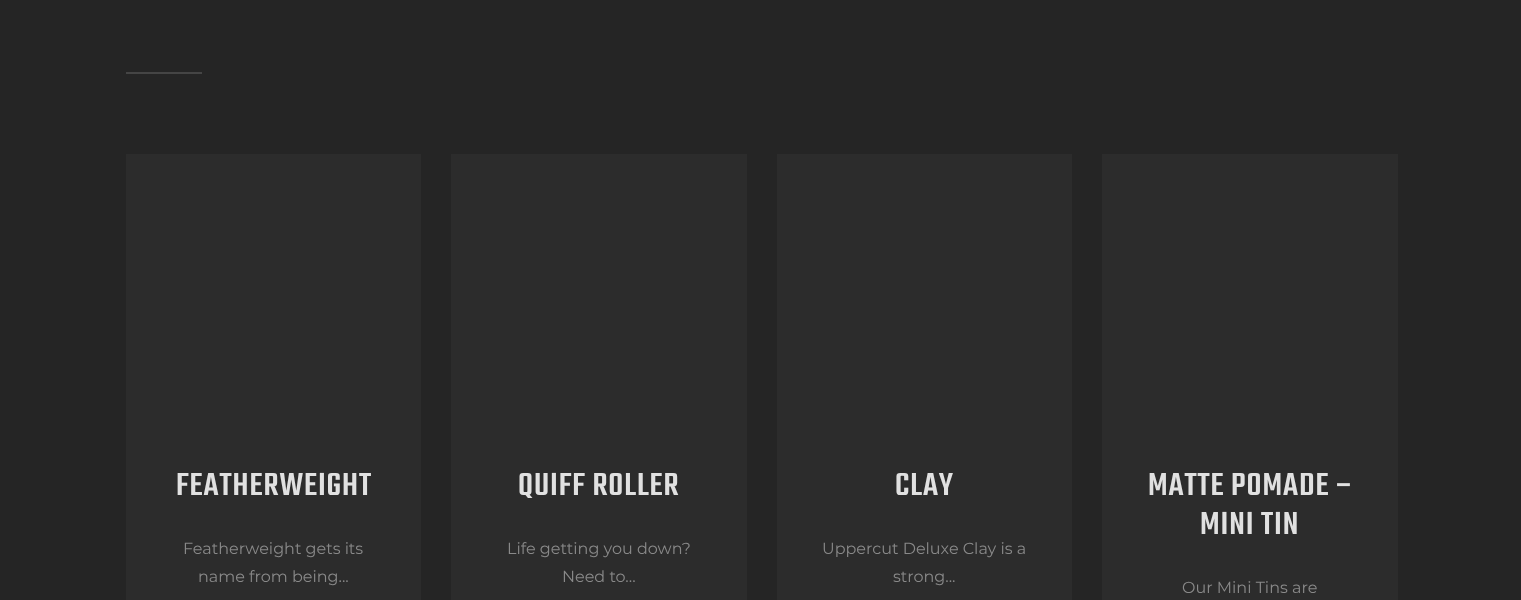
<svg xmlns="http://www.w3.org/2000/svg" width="1521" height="600">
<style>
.a{font:500 35px Teko;letter-spacing:0.9px;fill:#e1e1e1}
.b{font:16px Montserrat;fill:#898989}
</style>
<rect width="100%" height="100%" fill="#252525"/>
<path fill="#454545" d="M126 72h76v2H126z"/>
<path fill="#2c2c2c" d="M126 154h295v446H126z"/>
<path fill="#2c2c2c" d="M451 154h296v446H451z"/>
<path fill="#2c2c2c" d="M777 154h295v446H777z"/>
<path fill="#2c2c2c" d="M1102 154h296v446H1102z"/>
<text class="a" x="176" y="495">FEATHERWEIGHT</text>
<text class="b" x="183" y="554">Featherweight gets its</text>
<text class="b" x="198" y="582">name from being...</text>
<text class="a" x="518" y="495">QUIFF ROLLER</text>
<text class="b" x="507" y="554">Life getting you down?</text>
<text class="b" x="562" y="582">Need to...</text>
<text class="a" x="895" y="495">CLAY</text>
<text class="b" x="822" y="554">Uppercut Deluxe Clay is a</text>
<text class="b" x="893" y="582">strong...</text>
<text class="a" x="1148" y="495">MATTE POMADE –</text>
<text class="a" x="1200" y="534">MINI TIN</text>
<text class="b" x="1182" y="593">Our Mini Tins are</text>
</svg>
